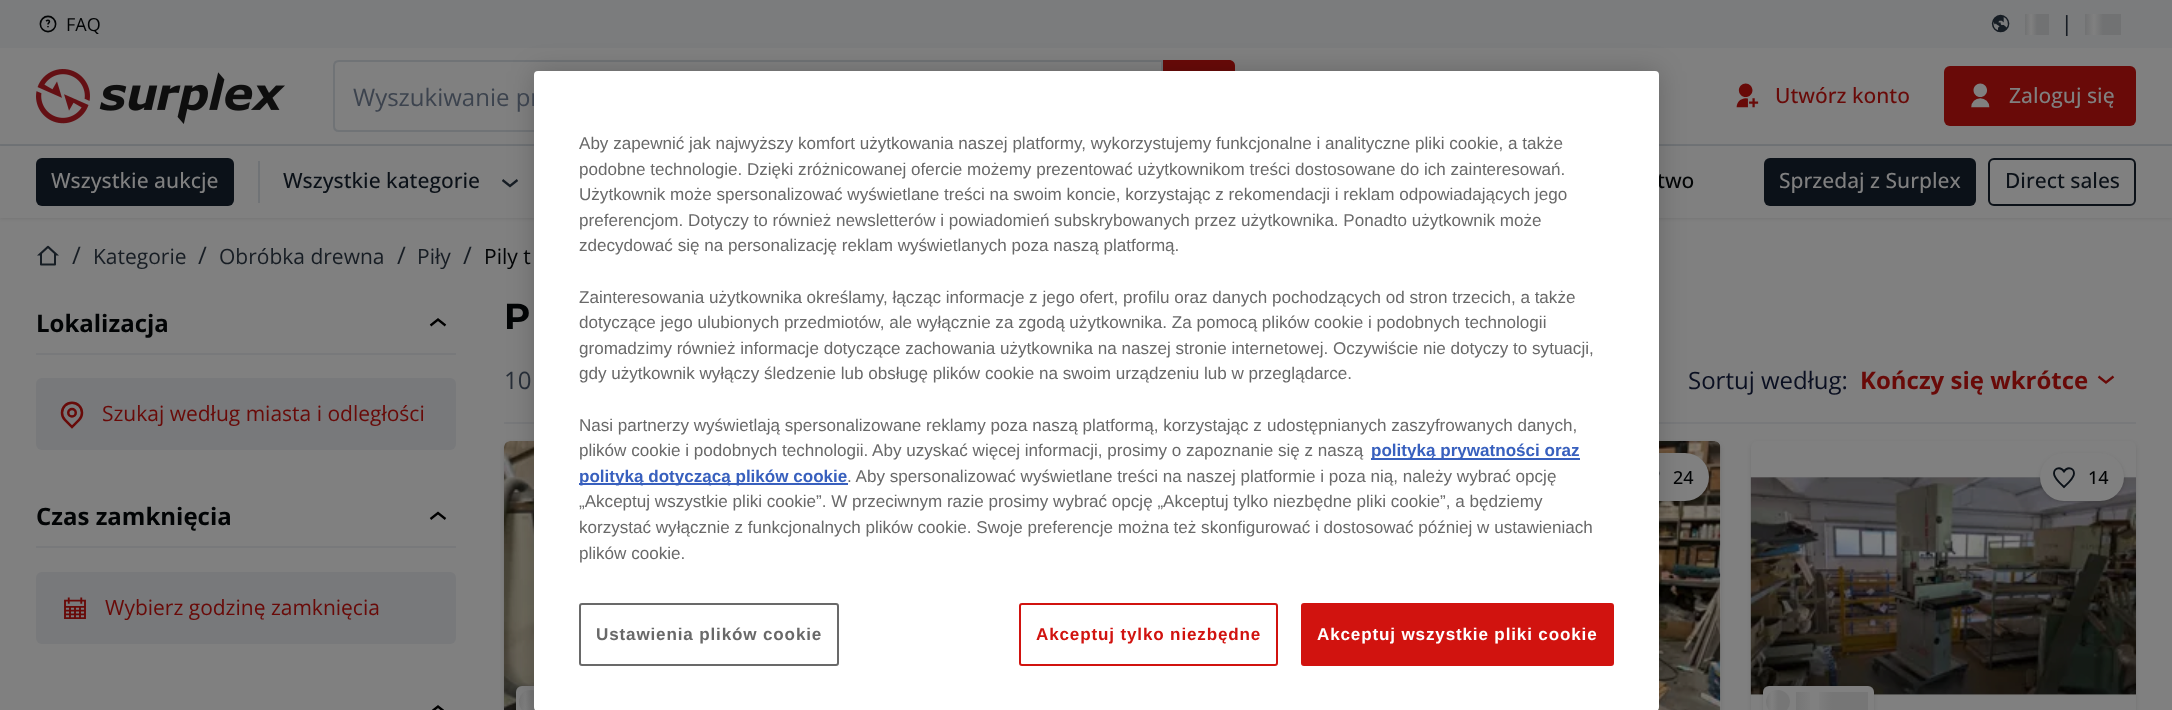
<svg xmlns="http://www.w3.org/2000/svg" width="2172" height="710">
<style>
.a{font:18px Open Sans;fill:#020405}
.b{font:500 21px Open Sans;fill:#171d24}
.c{font:24px Open Sans;fill:#3c434e}
.d{font:500 21px Open Sans;fill:#690a08}
.e{font:500 21px Open Sans;fill:#808080}
.f{font:500 21px Open Sans;fill:#0b1118}
.g{font:500 21px Open Sans;fill:#020405}
.h{font:24px Open Sans;fill:#171d24}
.i{font:21px Open Sans;fill:#171d24}
.j{font:21px Open Sans;fill:#020405}
.k{font:bold 24px Open Sans;fill:#020405}
.l{font:21px Open Sans;fill:#690a08}
.m{font:bold 36px Montserrat;fill:#020405}
.n{font:24px Open Sans;fill:#262d37}
.o{font:24px Open Sans;fill:#0a0f21}
.p{font:bold 24px Open Sans;fill:#690a08}
.q{font:500 18px Open Sans;fill:#020405}
.r{font:17.07px Liberation Sans;fill:#696969}
.s{font:bold 17.07px Liberation Sans;fill:#3860be}
.t{font:bold 17.07px Liberation Sans;letter-spacing:0.85px;fill:#696969}
.u{font:bold 17.07px Liberation Sans;letter-spacing:0.85px;fill:#d1130f}
.v{font:bold 17.07px Liberation Sans;letter-spacing:0.85px;fill:#fff}
</style>
<defs>
<linearGradient id="g1" gradientUnits="userSpaceOnUse" x1="2025" y1="24" x2="2031" y2="24"><stop offset="0" stop-color="#717273"/><stop offset="1" stop-color="#808080"/></linearGradient>
<linearGradient id="g2" gradientUnits="userSpaceOnUse" x1="2031" y1="24" x2="2037" y2="24"><stop offset="0" stop-color="#808080"/><stop offset="1" stop-color="#717273"/></linearGradient>
<linearGradient id="g3" gradientUnits="userSpaceOnUse" x1="2085" y1="24" x2="2094" y2="24"><stop offset="0" stop-color="#717273"/><stop offset="1" stop-color="#808080"/></linearGradient>
<linearGradient id="g4" gradientUnits="userSpaceOnUse" x1="2094" y1="24" x2="2103" y2="24"><stop offset="0" stop-color="#808080"/><stop offset="1" stop-color="#717273"/></linearGradient>
<clipPath id="clip1"><rect x="519" y="690" width="24" height="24" rx="12"/></clipPath>
<linearGradient id="g5" gradientUnits="userSpaceOnUse" x1="519" y1="702" x2="525" y2="702"><stop offset="0" stop-color="#808080" stop-opacity="0"/><stop offset="1" stop-color="#808080"/></linearGradient>
<linearGradient id="g6" gradientUnits="userSpaceOnUse" x1="525" y1="702" x2="531" y2="702"><stop offset="0" stop-color="#808080"/><stop offset="1" stop-color="#808080" stop-opacity="0"/></linearGradient>
<clipPath id="clip2"><rect x="1766" y="690" width="24" height="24" rx="12"/></clipPath>
<linearGradient id="g7" gradientUnits="userSpaceOnUse" x1="1766" y1="702" x2="1772" y2="702"><stop offset="0" stop-color="#808080" stop-opacity="0"/><stop offset="1" stop-color="#808080"/></linearGradient>
<linearGradient id="g8" gradientUnits="userSpaceOnUse" x1="1772" y1="702" x2="1778" y2="702"><stop offset="0" stop-color="#808080"/><stop offset="1" stop-color="#808080" stop-opacity="0"/></linearGradient>
<linearGradient id="g9" gradientUnits="userSpaceOnUse" x1="1796" y1="702" x2="1814" y2="702"><stop offset="0" stop-color="#767676"/><stop offset="1" stop-color="#808080"/></linearGradient>
<linearGradient id="g10" gradientUnits="userSpaceOnUse" x1="1814" y1="702" x2="1832" y2="702"><stop offset="0" stop-color="#808080"/><stop offset="1" stop-color="#767676"/></linearGradient>
</defs>
<rect width="100%" height="100%" fill="#808080"/>
<path fill="#7b7c7d" d="M0 0h2172v48H0z"/>
<image href="1.png" x="39" y="15" width="18" height="18"/>
<image href="2.png" x="1991" y="14" width="19" height="19"/>
<path fill="#717273" d="M2037 14h12v21H2037z"/>
<path fill="url(#g1)" d="M2025 14h6v21H2025z"/>
<path fill="url(#g2)" d="M2031 14h6v21H2031z"/>
<path fill="#717273" d="M2103 14h18v21H2103z"/>
<path fill="url(#g3)" d="M2085 14h9v21H2085z"/>
<path fill="url(#g4)" d="M2094 14h9v21H2094z"/>
<path fill="#707376" d="M0 144h2172v2H0z"/>
<image href="3.png" x="36" y="69" width="249" height="55"/>
<path fill="none" stroke="#707376" stroke-width="2" d="M339 61h823v70h-823c-3 0-5-2-5-5v-60c0-3 2-5 5-5z"/>
<path fill="#690a08" d="M1163 60h66c3.5 0 6 2.5 6 6v60c0 3.5-2.5 6-6 6h-66z"/>
<image href="4.png" x="1736" y="83" width="23" height="25"/>
<rect fill="#690a08" x="1944" y="66" width="192" height="60" rx="6"/>
<image href="5.png" x="1971" y="83" width="19" height="25"/>
<path fill="#00000014" filter="blur(1.5px)" d="M0 147h2172v72H0z"/>
<path fill="#808080" d="M0 146h2172v72H0z"/>
<rect fill="#0b1118" x="36" y="158" width="198" height="48" rx="6"/>
<path fill="#707376" d="M258 161h2v42H258z"/>
<image href="6.png" x="502" y="179" width="16" height="9"/>
<rect fill="#0b1118" x="1764" y="158" width="212" height="48" rx="6"/>
<rect fill="none" stroke="#0b1118" stroke-width="2" x="1989" y="159" width="146" height="46" rx="5"/>
<image href="7.png" x="37" y="245" width="22" height="21"/>
<path fill="#78797b" d="M36 353h420v2H36z"/>
<image href="8.png" x="429" y="318" width="18" height="9"/>
<rect fill="#78797b" x="36" y="378" width="420" height="72" rx="6"/>
<image href="9.png" x="60" y="401" width="24" height="28"/>
<path fill="#78797b" d="M36 546h420v2H36z"/>
<image href="10.png" x="429" y="511" width="18" height="9"/>
<rect fill="#78797b" x="36" y="572" width="420" height="72" rx="6"/>
<image href="11.png" x="64" y="597" width="22" height="22"/>
<image href="12.png" x="432" y="705" width="12" height="5"/>
<path fill="#78797b" d="M504 422h1632v2H504z"/>
<image href="13.png" x="2097" y="375" width="18" height="9"/>
<rect fill="#0000001a" filter="blur(2px)" x="504" y="443" width="386" height="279" rx="6"/>
<rect fill="#808080" x="504" y="441" width="386" height="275" rx="6"/>
<image href="14.png" x="504" y="441" width="30" height="269"/>
<rect fill="#0000001a" filter="blur(2px)" x="516" y="687" width="111" height="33" rx="6"/>
<rect fill="#808080" x="516" y="686" width="111" height="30" rx="6"/>
<circle fill="#767676" cx="531" cy="702" r="12"/>
<g clip-path="url(#clip1)">
<path fill="url(#g5)" d="M519 690h6v20H519z"/>
<path fill="url(#g6)" d="M525 690h6v20H525z"/>
</g>
<rect fill="#0000001a" filter="blur(2px)" x="1335" y="443" width="386" height="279" rx="6"/>
<rect fill="#808080" x="1335" y="441" width="386" height="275" rx="6"/>
<image href="15.png" x="1657" y="441" width="64" height="269"/>
<rect fill="#0000001a" filter="blur(2px)" x="1625" y="455" width="84" height="48" rx="24"/>
<rect fill="#0000001a" filter="blur(1.5px)" x="1626" y="456" width="81" height="45" rx="22.5"/>
<rect fill="#808080" x="1625" y="453" width="84" height="48" rx="24"/>
<image href="16.png" x="1659" y="471" width="1" height="5"/>
<rect fill="#0000001a" filter="blur(2px)" x="1751" y="443" width="385" height="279" rx="6"/>
<rect fill="#808080" x="1751" y="441" width="385" height="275" rx="6"/>
<image href="18.png" x="1750" y="477" width="386" height="219"/>
<rect fill="#0000001a" filter="blur(2px)" x="2040" y="455" width="84" height="48" rx="24"/>
<rect fill="#0000001a" filter="blur(1.5px)" x="2042" y="456" width="81" height="45" rx="22.5"/>
<rect fill="#808080" x="2040" y="453" width="84" height="48" rx="24"/>
<image href="17.png" x="2053" y="467" width="22" height="22"/>
<rect fill="#0000001a" filter="blur(2px)" x="1763" y="687" width="111" height="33" rx="6"/>
<rect fill="#808080" x="1763" y="686" width="111" height="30" rx="6"/>
<circle fill="#767676" cx="1778" cy="702" r="12"/>
<g clip-path="url(#clip2)">
<path fill="url(#g7)" d="M1766 690h6v20H1766z"/>
<path fill="url(#g8)" d="M1772 690h6v20H1772z"/>
</g>
<path fill="#767676" d="M1832 692h36v18H1832z"/>
<path fill="url(#g9)" d="M1796 692h14v18H1796z"/>
<path fill="url(#g10)" d="M1819 692h13v18H1819z"/>
<rect fill="#00000033" filter="blur(13.5px)" x="534" y="71" width="1125" height="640" rx="4"/>
<text class="a" x="66" y="31">FAQ</text>
<text class="b" x="2061" y="31">|</text>
<text class="c" x="353" y="106">Wyszukiwanie pr</text>
<text class="d" x="1775" y="103">Utwórz konto</text>
<text class="e" x="2009" y="103">Zaloguj się</text>
<text class="e" x="51" y="188">Wszystkie aukcje</text>
<text class="f" x="283" y="188">Wszystkie kategorie</text>
<text class="g" x="1657" y="188">two</text>
<text class="e" x="1779" y="188">Sprzedaj z Surplex</text>
<text class="f" x="2005" y="188">Direct sales</text>
<text class="h" x="72" y="264">/</text>
<text class="i" x="93" y="264">Kategorie</text>
<text class="h" x="198" y="264">/</text>
<text class="i" x="219" y="264">Obróbka drewna</text>
<text class="h" x="397" y="264">/</text>
<text class="i" x="417" y="264">Piły</text>
<text class="h" x="463" y="264">/</text>
<text class="j" x="484" y="264">Pily t</text>
<text class="k" x="36" y="332">Lokalizacja</text>
<text class="l" x="102" y="421">Szukaj według miasta i odległości</text>
<text class="k" x="36" y="525">Czas zamknięcia</text>
<text class="l" x="105" y="615">Wybierz godzinę zamknięcia</text>
<text class="m" x="504" y="329">P</text>
<text class="n" x="504" y="389">10</text>
<text class="o" x="1688" y="389">Sortuj według:</text>
<text class="p" x="1860" y="389">Kończy się wkrótce</text>
<text class="q" x="1673" y="484">24</text>
<text class="q" x="2088" y="484">14</text>
<rect fill="#fff" x="534" y="71" width="1125" height="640" rx="4"/>
<text class="r" x="579" y="149">Aby zapewnić jak najwyższy komfort użytkowania naszej platformy, wykorzystujemy funkcjonalne i analityczne pliki cookie, a także</text>
<text class="r" x="579" y="175">podobne technologie. Dzięki zróżnicowanej ofercie możemy prezentować użytkownikom treści dostosowane do ich zainteresowań.</text>
<text class="r" x="579" y="200">Użytkownik może spersonalizować wyświetlane treści na swoim koncie, korzystając z rekomendacji i reklam odpowiadających jego</text>
<text class="r" x="579" y="226">preferencjom. Dotyczy to również newsletterów i powiadomień subskrybowanych przez użytkownika. Ponadto użytkownik może</text>
<text class="r" x="579" y="251">zdecydować się na personalizację reklam wyświetlanych poza naszą platformą.</text>
<text class="r" x="579" y="303">Zainteresowania użytkownika określamy, łącząc informacje z jego ofert, profilu oraz danych pochodzących od stron trzecich, a także</text>
<text class="r" x="579" y="328">dotyczące jego ulubionych przedmiotów, ale wyłącznie za zgodą użytkownika. Za pomocą plików cookie i podobnych technologii</text>
<text class="r" x="579" y="354">gromadzimy również informacje dotyczące zachowania użytkownika na naszej stronie internetowej. Oczywiście nie dotyczy to sytuacji,</text>
<text class="r" x="579" y="379">gdy użytkownik wyłączy śledzenie lub obsługę plików cookie na swoim urządzeniu lub w przeglądarce.</text>
<text class="r" x="579" y="431">Nasi partnerzy wyświetlają spersonalizowane reklamy poza naszą platformą, korzystając z</text>
<text class="r" x="1267" y="431">udostępnianych zaszyfrowanych danych,</text>
<text class="r" x="579" y="456">plików cookie i podobnych technologii. Aby uzyskać więcej informacji, prosimy o zapoznanie się z naszą</text>
<path fill="#3860be" d="M1371 458h209v2H1371z"/>
<text class="s" x="1371" y="456">polityką prywatności oraz</text>
<path fill="#3860be" d="M579 483h269v2H579z"/>
<text class="s" x="579" y="482">polityką dotyczącą plików cookie</text>
<text class="r" x="847" y="482">. Aby spersonalizować wyświetlane treści na naszej platformie i poza nią, należy wybrać opcję</text>
<text class="r" x="579" y="507">„Akceptuj wszystkie pliki cookie”. W przeciwnym razie prosimy wybrać opcję „Akceptuj tylko niezbędne pliki cookie”, a będziemy</text>
<text class="r" x="579" y="533">korzystać wyłącznie z funkcjonalnych plików cookie. Swoje preferencje można też skonfigurować i dostosować później w ustawieniach</text>
<text class="r" x="579" y="559">plików cookie.</text>
<rect fill="none" stroke="#696969" stroke-width="2" x="580" y="604" width="258" height="61" rx="2"/>
<text class="t" x="596" y="640">Ustawienia plików cookie</text>
<rect fill="none" stroke="#d1130f" stroke-width="2" x="1020" y="604" width="257" height="61" rx="2"/>
<text class="u" x="1036" y="640">Akceptuj tylko niezbędne</text>
<rect fill="#d1130f" stroke="#d1130f" stroke-width="2" x="1302" y="604" width="311" height="61" rx="2"/>
<text class="v" x="1317" y="640">Akceptuj wszystkie pliki cookie</text>
</svg>
